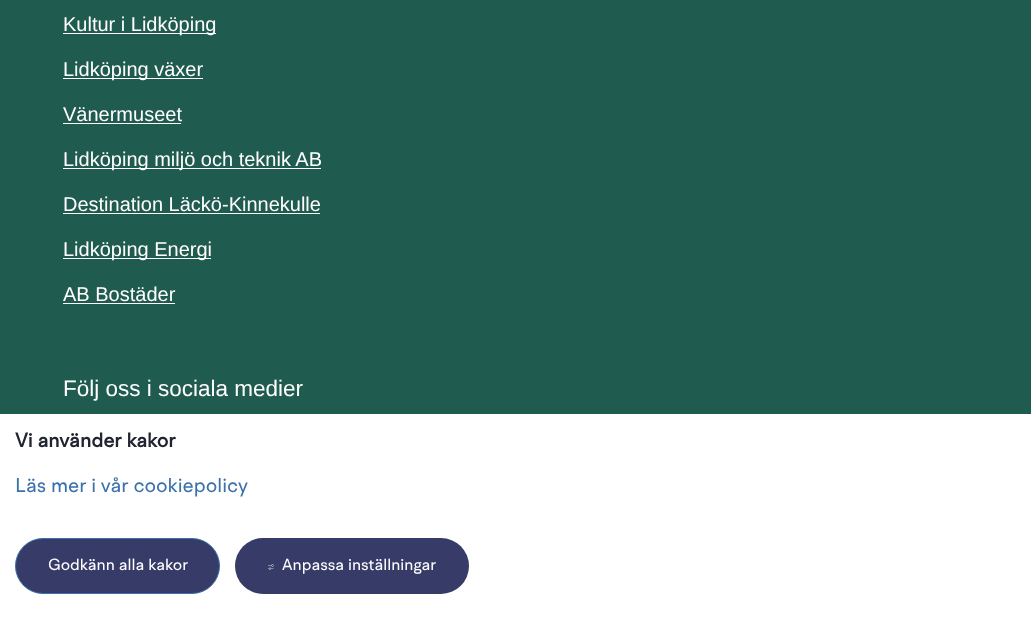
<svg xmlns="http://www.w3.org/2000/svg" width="1031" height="625">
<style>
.a{font:20px Liberation Sans;fill:#fff}
.b{font:22.5px Liberation Sans;fill:#fff}
.c{font:bold 20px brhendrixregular;fill:#202330}
.d{font:20px brhendrixregular;fill:#3a71aa}
.e{font:16.25px brhendrixregular;fill:#fff}
</style>
<rect width="100%" height="100%" fill="#205b4f"/>
<path fill="#fff" d="M63 33h153v1H63z"/>
<path fill="#fff" d="M63 78h140v1H63z"/>
<path fill="#fff" d="M63 123h118v1H63z"/>
<path fill="#fff" d="M63 168h258v1H63z"/>
<path fill="#fff" d="M63 213h257v1H63z"/>
<path fill="#fff" d="M63 258h148v1H63z"/>
<path fill="#fff" d="M63 303h112v1H63z"/>
<path fill="#fff" d="M0 414h1031v211H0z"/>
<rect fill="#363b68" stroke="#3a71aa" x="15.5" y="538.5" width="204" height="55" rx="27.5"/>
<rect fill="#363b68" x="235" y="538" width="234" height="56" rx="28"/>
<image href="1.png" x="268" y="564" width="6" height="6"/>
<text class="a" x="63" y="31">Kultur i Lidköping</text>
<text class="a" x="63" y="76">Lidköping växer</text>
<text class="a" x="63" y="121">Vänermuseet</text>
<text class="a" x="63" y="166">Lidköping miljö och teknik AB</text>
<text class="a" x="63" y="211">Destination Läckö-Kinnekulle</text>
<text class="a" x="63" y="256">Lidköping Energi</text>
<text class="a" x="63" y="301">AB Bostäder</text>
<text class="b" x="63" y="396">Följ oss i sociala medier</text>
<text class="c" x="15" y="447">Vi använder kakor</text>
<text class="d" x="15" y="492">Läs mer i vår cookiepolicy</text>
<text class="e" x="48" y="570">Godkänn alla kakor</text>
<text class="e" x="282" y="570">Anpassa inställningar</text>
</svg>
